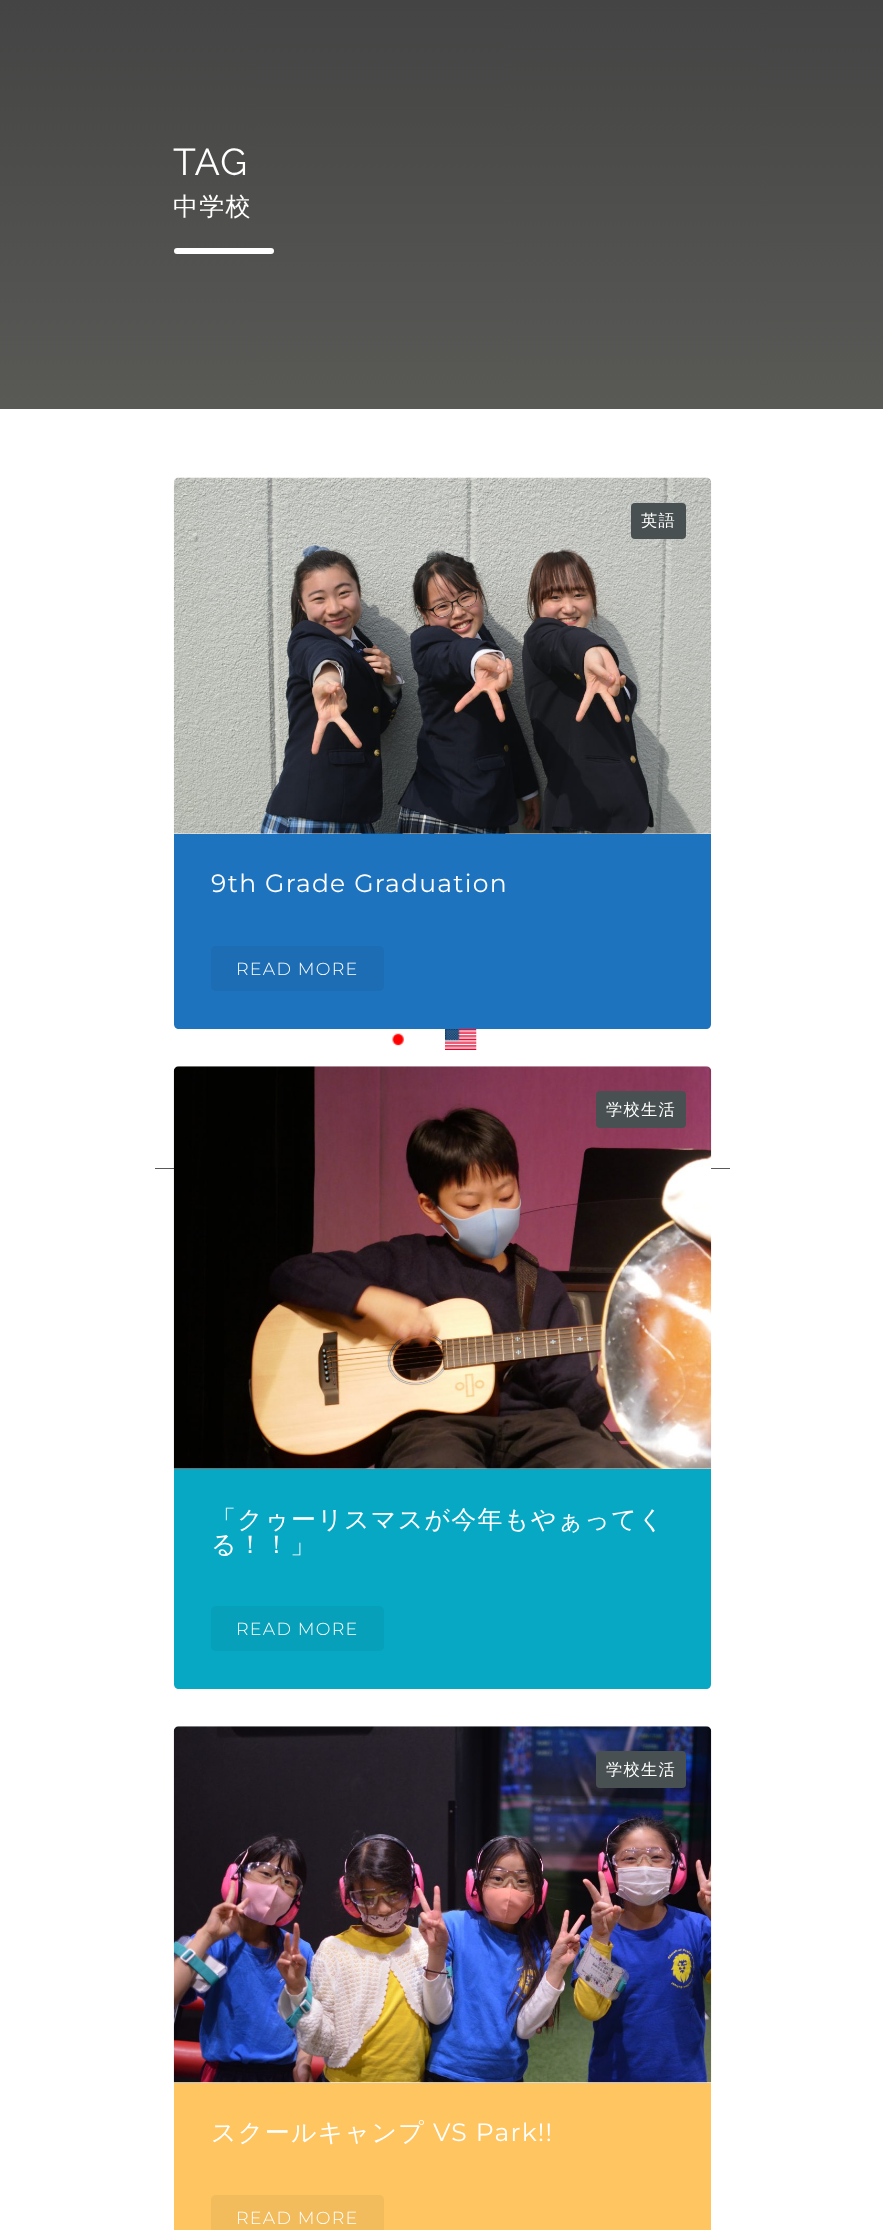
<svg xmlns="http://www.w3.org/2000/svg" width="883" height="2230">
<style>
.a{font:37.5px Raleway;letter-spacing:1.25px;fill:#fff}
.b{font:500 25px WenQuanYi Zen Hei;letter-spacing:1.25px;fill:#fff}
.c{font:500 16.25px WenQuanYi Zen Hei;letter-spacing:1.25px;fill:#fff}
.d{font:25px Montserrat;letter-spacing:1.25px;fill:#fff}
.e{font:300 17.5px Montserrat;letter-spacing:1.25px;fill:#fff}
</style>
<defs>
<linearGradient id="g1" gradientUnits="userSpaceOnUse" x1="442" y1="0" x2="442" y2="409"><stop offset="0" stop-color="#444"/><stop offset="1" stop-color="#595956"/></linearGradient>
</defs>
<rect width="100%" height="100%" fill="#fff"/>
<path fill="url(#g1)" d="M0 0h883v409H0z"/>
<rect fill="#fff" x="174" y="248" width="100" height="6" rx="3"/>
<image href="4.png" x="361" y="833" width="193" height="1"/>
<image href="1.png" x="173" y="477" width="539" height="357"/>
<rect fill="#495052" x="631" y="503" width="55" height="36" rx="4"/>
<path fill="#1e73be" d="M174 834h537v190c0 3-2 5-5 5h-527c-3 0-5-2-5-5z"/>
<rect fill="#1d6db5" x="211" y="946" width="173" height="45" rx="5"/>
<path fill="#595959" d="M155 1168h575v1H155z"/>
<image href="2.png" x="173" y="1066" width="539" height="403"/>
<rect fill="#495052" x="596" y="1091" width="90" height="37" rx="4"/>
<path fill="#07a8c4" d="M174 1469h537v215c0 3-2 5-5 5h-527c-3 0-5-2-5-5z"/>
<rect fill="#07a0ba" x="211" y="1606" width="173" height="45" rx="5"/>
<image href="3.png" x="173" y="1726" width="539" height="357"/>
<rect fill="#495052" x="596" y="1751" width="90" height="37" rx="4"/>
<path fill="#ffc560" d="M174 2083h537v147H174z"/>
<rect fill="#f2bb5b" x="211" y="2195" width="173" height="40" rx="5"/>
<image href="5.png" x="392" y="1033" width="12" height="13"/>
<image href="6.png" x="445" y="1029" width="32" height="21"/>
<text class="a" x="173" y="175">TAG</text>
<text class="b" x="173" y="215">中学校</text>
<text class="c" x="641" y="526">英語</text>
<text class="d" x="211" y="892">9th Grade Graduation</text>
<text class="e" x="236" y="975">READ MORE</text>
<text class="c" x="606" y="1115">学校生活</text>
<text class="b" x="211" y="1528">「クゥーリスマスが今年もやぁってく</text>
<text class="b" x="211" y="1553">る！！」</text>
<text class="e" x="236" y="1635">READ MORE</text>
<text class="c" x="606" y="1775">学校生活</text>
<text class="b" x="211" y="2141">スクールキャンプ</text>
<text class="d" x="433" y="2141">VS Park!!</text>
<text class="e" x="236" y="2224">READ MORE</text>
</svg>
